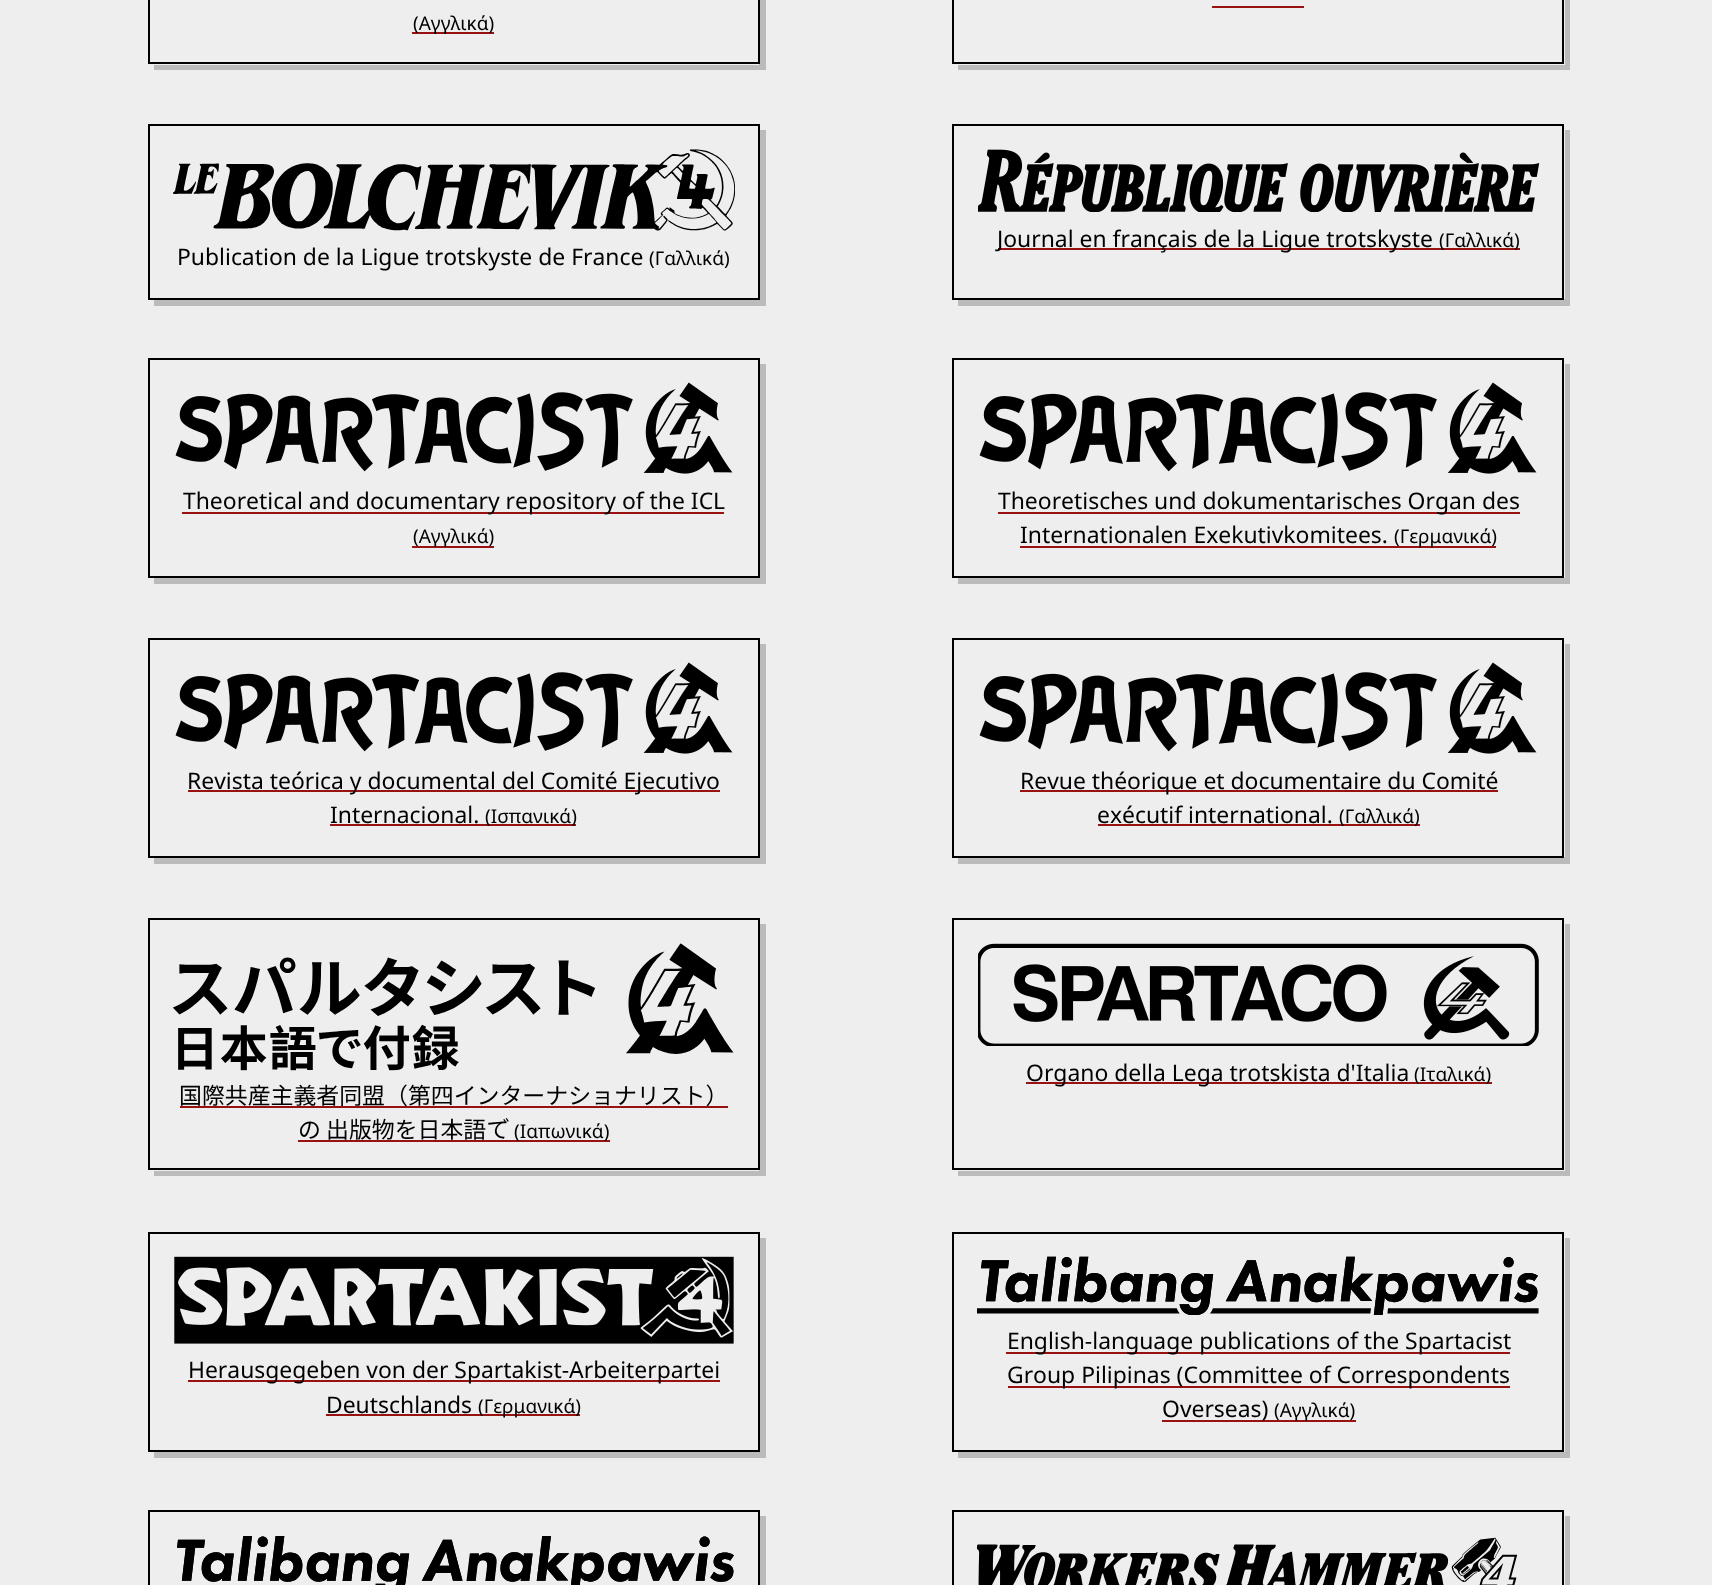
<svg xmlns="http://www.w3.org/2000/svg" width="1712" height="1585">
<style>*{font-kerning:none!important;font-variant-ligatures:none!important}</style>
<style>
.a{font:19px Noto Sans;fill:#000}
.b{font:22.9px Noto Sans;fill:#000}
.c{font:22.9px Noto Sans JP;fill:#000}
</style>
<rect width="100%" height="100%" fill="#eee"/>
<path fill="#bbb" d="M154 65v5h612v-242h-7v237z"/>
<path fill="none" stroke="#000" stroke-width="2" d="M149 -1h610v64H149z"/>
<path fill="#911" d="M412 32h82v2H412z"/>
<path fill="#bbb" d="M958 65v5h612v-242h-5v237z"/>
<path fill="none" stroke="#000" stroke-width="2" d="M953 -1h610v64H953z"/>
<path fill="#911" d="M1212 6h92v2H1212z"/>
<path fill="#bbb" d="M958 299v7h612v-176h-5v169z"/>
<path fill="none" stroke="#000" stroke-width="2" d="M953 125h610v174H953z"/>
<image href="1.png" x="978" y="149" width="562" height="63"/>
<path fill="#911" d="M998 248h522v2H998z"/>
<path fill="#bbb" d="M154 299v7h612v-176h-7v169z"/>
<path fill="none" stroke="#000" stroke-width="2" d="M149 125h610v174H149z"/>
<image href="2.png" x="173" y="149" width="562" height="82"/>
<path fill="#bbb" d="M154 578v6h612v-220h-7v214z"/>
<path fill="none" stroke="#000" stroke-width="2" d="M149 359h610v218H149z"/>
<image href="3.png" x="175" y="382" width="558" height="92"/>
<path fill="#911" d="M182 512h542v2H182z"/>
<path fill="#911" d="M412 546h82v2H412z"/>
<path fill="#bbb" d="M958 578v6h612v-220h-5v214z"/>
<path fill="none" stroke="#000" stroke-width="2" d="M953 359h610v218H953z"/>
<image href="4.png" x="979" y="382" width="558" height="92"/>
<path fill="#911" d="M998 512h522v2H998z"/>
<path fill="#911" d="M1020 546h476v2H1020z"/>
<path fill="#bbb" d="M154 857v7h612v-220h-7v213z"/>
<path fill="none" stroke="#000" stroke-width="2" d="M149 639h610v218H149z"/>
<image href="5.png" x="175" y="662" width="558" height="92"/>
<path fill="#911" d="M188 790h532v2H188z"/>
<path fill="#911" d="M330 824h246v2H330z"/>
<path fill="#bbb" d="M958 857v7h612v-220h-5v213z"/>
<path fill="none" stroke="#000" stroke-width="2" d="M953 639h610v218H953z"/>
<image href="6.png" x="979" y="662" width="558" height="92"/>
<path fill="#911" d="M1020 790h478v2H1020z"/>
<path fill="#911" d="M1098 824h322v2H1098z"/>
<path fill="#bbb" d="M958 1171v5h612v-252h-5v247z"/>
<path fill="none" stroke="#000" stroke-width="2" d="M953 919h610v250H953z"/>
<image href="7.png" x="978" y="943" width="561" height="103"/>
<path fill="#911" d="M1026 1082h466v2H1026z"/>
<path fill="#bbb" d="M154 1171v5h612v-252h-7v247z"/>
<path fill="none" stroke="#000" stroke-width="2" d="M149 919h610v250H149z"/>
<image href="8.png" x="173" y="943" width="561" height="128"/>
<path fill="#911" d="M180 1106h548v2H180z"/>
<path fill="#911" d="M298 1140h312v2H298z"/>
<path fill="#bbb" d="M154 1452v6h612v-220h-7v214z"/>
<path fill="none" stroke="#000" stroke-width="2" d="M149 1233h610v218H149z"/>
<image href="9.png" x="174" y="1256" width="560" height="88"/>
<path fill="#911" d="M188 1380h532v2H188z"/>
<path fill="#911" d="M326 1414h254v2H326z"/>
<path fill="#bbb" d="M958 1452v6h612v-220h-5v214z"/>
<path fill="none" stroke="#000" stroke-width="2" d="M953 1233h610v218H953z"/>
<image href="10.png" x="977" y="1256" width="562" height="59"/>
<path fill="#911" d="M1006 1352h504v2H1006z"/>
<path fill="#911" d="M1008 1386h502v2H1008z"/>
<path fill="#911" d="M1162 1420h194v2H1162z"/>
<path fill="#bbb" d="M154 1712v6h612v-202h-7v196z"/>
<path fill="none" stroke="#000" stroke-width="2" d="M149 1511h610v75H149z"/>
<image href="11.png" x="177" y="1536" width="557" height="49"/>
<path fill="#bbb" d="M958 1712v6h612v-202h-5v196z"/>
<path fill="none" stroke="#000" stroke-width="2" d="M953 1511h610v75H953z"/>
<image href="12.png" x="977" y="1537" width="541" height="48"/>
<text class="a" x="413" y="30">(Αγγλικά)</text>
<text class="b" x="997" y="247">Journal en français de la Ligue trotskyste</text>
<text class="a" x="1439" y="247">(Γαλλικά)</text>
<text class="b" x="177" y="265">Publication de la Ligue trotskyste de France</text>
<text class="a" x="649" y="265">(Γαλλικά)</text>
<text class="b" x="183" y="509">Theoretical and documentary repository of the ICL</text>
<text class="a" x="413" y="543">(Αγγλικά)</text>
<text class="b" x="998" y="509">Theoretisches und dokumentarisches Organ des</text>
<text class="b" x="1020" y="543">Internationalen Exekutivkomitees.</text>
<text class="a" x="1394" y="543">(Γερμανικά)</text>
<text class="b" x="187" y="789">Revista teórica y documental del Comité Ejecutivo</text>
<text class="b" x="330" y="823">Internacional.</text>
<text class="a" x="485" y="823">(Ισπανικά)</text>
<text class="b" x="1020" y="789">Revue théorique et documentaire du Comité</text>
<text class="b" x="1097" y="823">exécutif international.</text>
<text class="a" x="1339" y="823">(Γαλλικά)</text>
<text class="b" x="1026" y="1081">Organo della Lega trotskista d'Italia</text>
<text class="a" x="1414" y="1081">(Ιταλικά)</text>
<text class="c" x="179" y="1104">国際共産主義者同盟（第四インターナショナリスト）</text>
<text class="c" x="298" y="1138">の 出版物を日本語で</text>
<text class="a" x="514" y="1138">(Ιαπωνικά)</text>
<text class="b" x="188" y="1378">Herausgegeben von der Spartakist-Arbeiterpartei</text>
<text class="b" x="326" y="1413">Deutschlands</text>
<text class="a" x="478" y="1413">(Γερμανικά)</text>
<text class="b" x="1007" y="1349">English-language publications of the Spartacist</text>
<text class="b" x="1007" y="1383">Group Pilipinas (Committee of Correspondents</text>
<text class="b" x="1162" y="1417">Overseas)</text>
<text class="a" x="1274" y="1417">(Αγγλικά)</text>
</svg>
